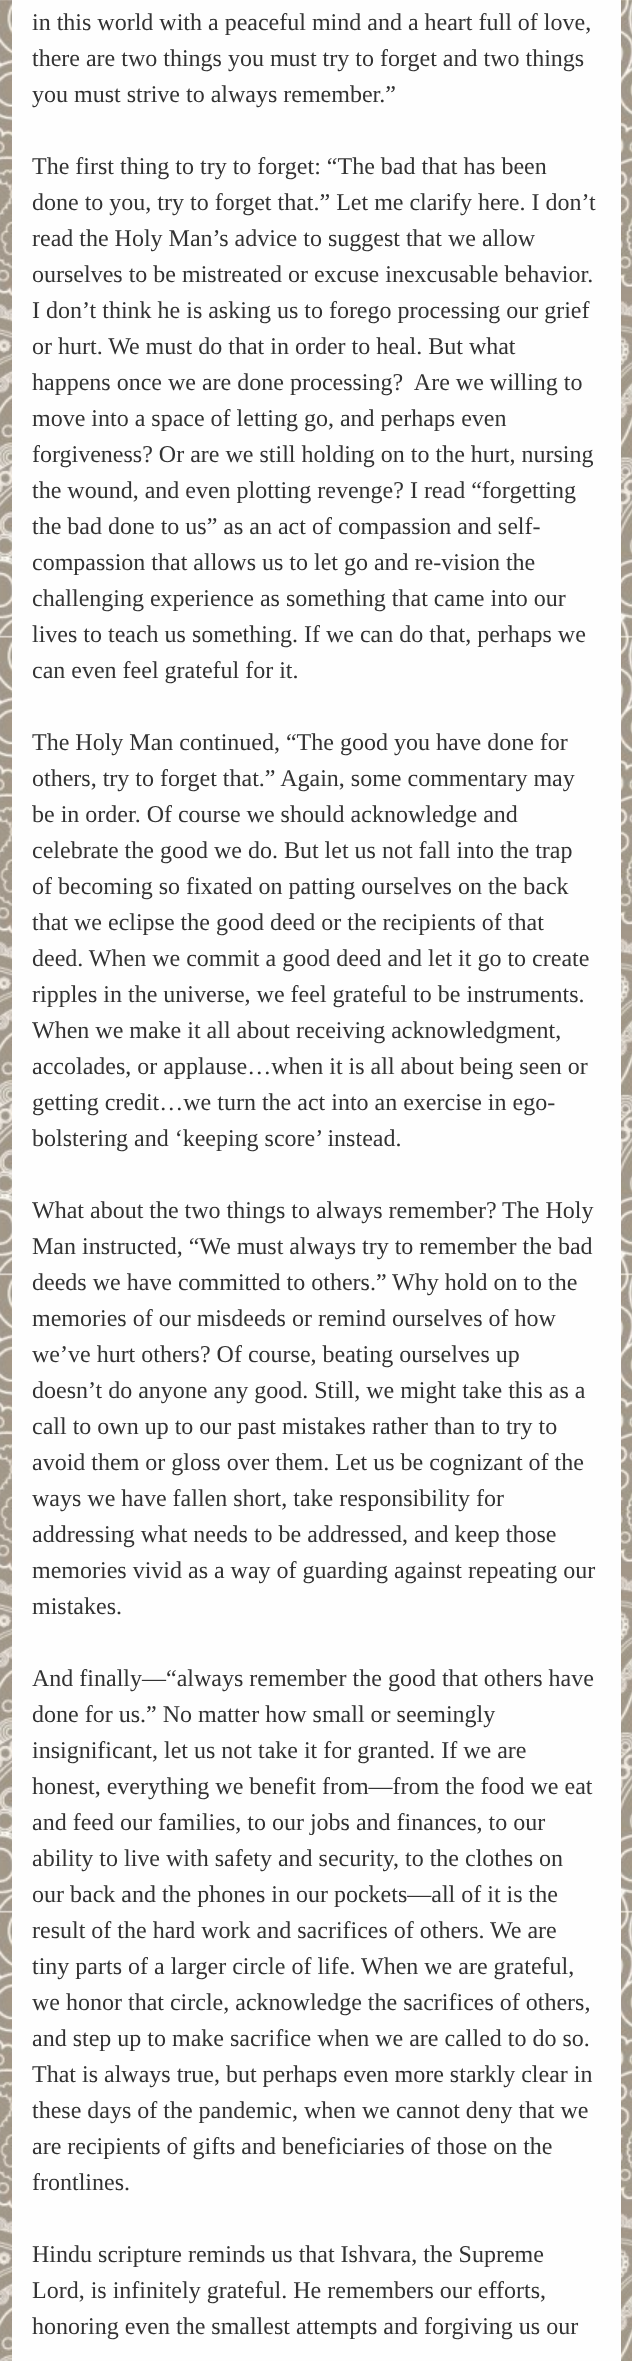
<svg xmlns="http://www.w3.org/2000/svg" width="632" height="2361">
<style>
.a{font:24px Liberation Serif;fill:#333}
</style>
<rect width="100%" height="100%" fill="#fff"/>
<image href="1.png" x="0" y="0" width="632" height="2361"/>
<path fill="#fefefe" d="M12 0h609v2361H12z"/>
<text class="a" x="32" y="30">in this world with a peaceful mind and a heart full of love,</text>
<text class="a" x="32" y="66">there are two things you must try to forget and two things</text>
<text class="a" x="32" y="102">you must strive to always remember.”</text>
<text class="a" x="32" y="174">The first thing to try to forget: “The bad that has been</text>
<text class="a" x="32" y="210">done to you, try to forget that.” Let me clarify here. I don’t</text>
<text class="a" x="32" y="246">read the Holy Man’s advice to suggest that we allow</text>
<text class="a" x="32" y="282">ourselves to be mistreated or excuse inexcusable behavior.</text>
<text class="a" x="32" y="318">I don’t think he is asking us to forego processing our grief</text>
<text class="a" x="32" y="354">or hurt. We must do that in order to heal. But what</text>
<text class="a" xml:space="preserve" x="32" y="390">happens once we are done processing?  Are we willing to</text>
<text class="a" x="32" y="426">move into a space of letting go, and perhaps even</text>
<text class="a" x="32" y="462">forgiveness? Or are we still holding on to the hurt, nursing</text>
<text class="a" x="32" y="498">the wound, and even plotting revenge? I read “forgetting</text>
<text class="a" x="32" y="534">the bad done to us” as an act of compassion and self-</text>
<text class="a" x="32" y="570">compassion that allows us to let go and re-vision the</text>
<text class="a" x="32" y="606">challenging experience as something that came into our</text>
<text class="a" x="32" y="642">lives to teach us something. If we can do that, perhaps we</text>
<text class="a" x="32" y="678">can even feel grateful for it.</text>
<text class="a" x="32" y="750">The Holy Man continued, “The good you have done for</text>
<text class="a" x="32" y="786">others, try to forget that.” Again, some commentary may</text>
<text class="a" x="32" y="822">be in order. Of course we should acknowledge and</text>
<text class="a" x="32" y="858">celebrate the good we do. But let us not fall into the trap</text>
<text class="a" x="32" y="894">of becoming so fixated on patting ourselves on the back</text>
<text class="a" x="32" y="930">that we eclipse the good deed or the recipients of that</text>
<text class="a" x="32" y="966">deed. When we commit a good deed and let it go to create</text>
<text class="a" x="32" y="1002">ripples in the universe, we feel grateful to be instruments.</text>
<text class="a" x="32" y="1038">When we make it all about receiving acknowledgment,</text>
<text class="a" x="32" y="1074">accolades, or applause…when it is all about being seen or</text>
<text class="a" x="32" y="1110">getting credit…we turn the act into an exercise in ego-</text>
<text class="a" x="32" y="1146">bolstering and ‘keeping score’ instead.</text>
<text class="a" x="32" y="1218">What about the two things to always remember? The Holy</text>
<text class="a" x="32" y="1254">Man instructed, “We must always try to remember the bad</text>
<text class="a" x="32" y="1290">deeds we have committed to others.” Why hold on to the</text>
<text class="a" x="32" y="1326">memories of our misdeeds or remind ourselves of how</text>
<text class="a" x="32" y="1362">we’ve hurt others? Of course, beating ourselves up</text>
<text class="a" x="32" y="1398">doesn’t do anyone any good. Still, we might take this as a</text>
<text class="a" x="32" y="1434">call to own up to our past mistakes rather than to try to</text>
<text class="a" x="32" y="1470">avoid them or gloss over them. Let us be cognizant of the</text>
<text class="a" x="32" y="1506">ways we have fallen short, take responsibility for</text>
<text class="a" x="32" y="1542">addressing what needs to be addressed, and keep those</text>
<text class="a" x="32" y="1578">memories vivid as a way of guarding against repeating our</text>
<text class="a" x="32" y="1614">mistakes.</text>
<text class="a" x="32" y="1686">And finally—“always remember the good that others have</text>
<text class="a" x="32" y="1722">done for us.” No matter how small or seemingly</text>
<text class="a" x="32" y="1758">insignificant, let us not take it for granted. If we are</text>
<text class="a" x="32" y="1794">honest, everything we benefit from—from the food we eat</text>
<text class="a" x="32" y="1830">and feed our families, to our jobs and finances, to our</text>
<text class="a" x="32" y="1866">ability to live with safety and security, to the clothes on</text>
<text class="a" x="32" y="1902">our back and the phones in our pockets—all of it is the</text>
<text class="a" x="32" y="1938">result of the hard work and sacrifices of others. We are</text>
<text class="a" x="32" y="1974">tiny parts of a larger circle of life. When we are grateful,</text>
<text class="a" x="32" y="2010">we honor that circle, acknowledge the sacrifices of others,</text>
<text class="a" x="32" y="2046">and step up to make sacrifice when we are called to do so.</text>
<text class="a" x="32" y="2082">That is always true, but perhaps even more starkly clear in</text>
<text class="a" x="32" y="2118">these days of the pandemic, when we cannot deny that we</text>
<text class="a" x="32" y="2154">are recipients of gifts and beneficiaries of those on the</text>
<text class="a" x="32" y="2190">frontlines.</text>
<text class="a" x="32" y="2262">Hindu scripture reminds us that Ishvara, the Supreme</text>
<text class="a" x="32" y="2298">Lord, is infinitely grateful. He remembers our efforts,</text>
<text class="a" x="32" y="2334">honoring even the smallest attempts and forgiving us our</text>
</svg>
